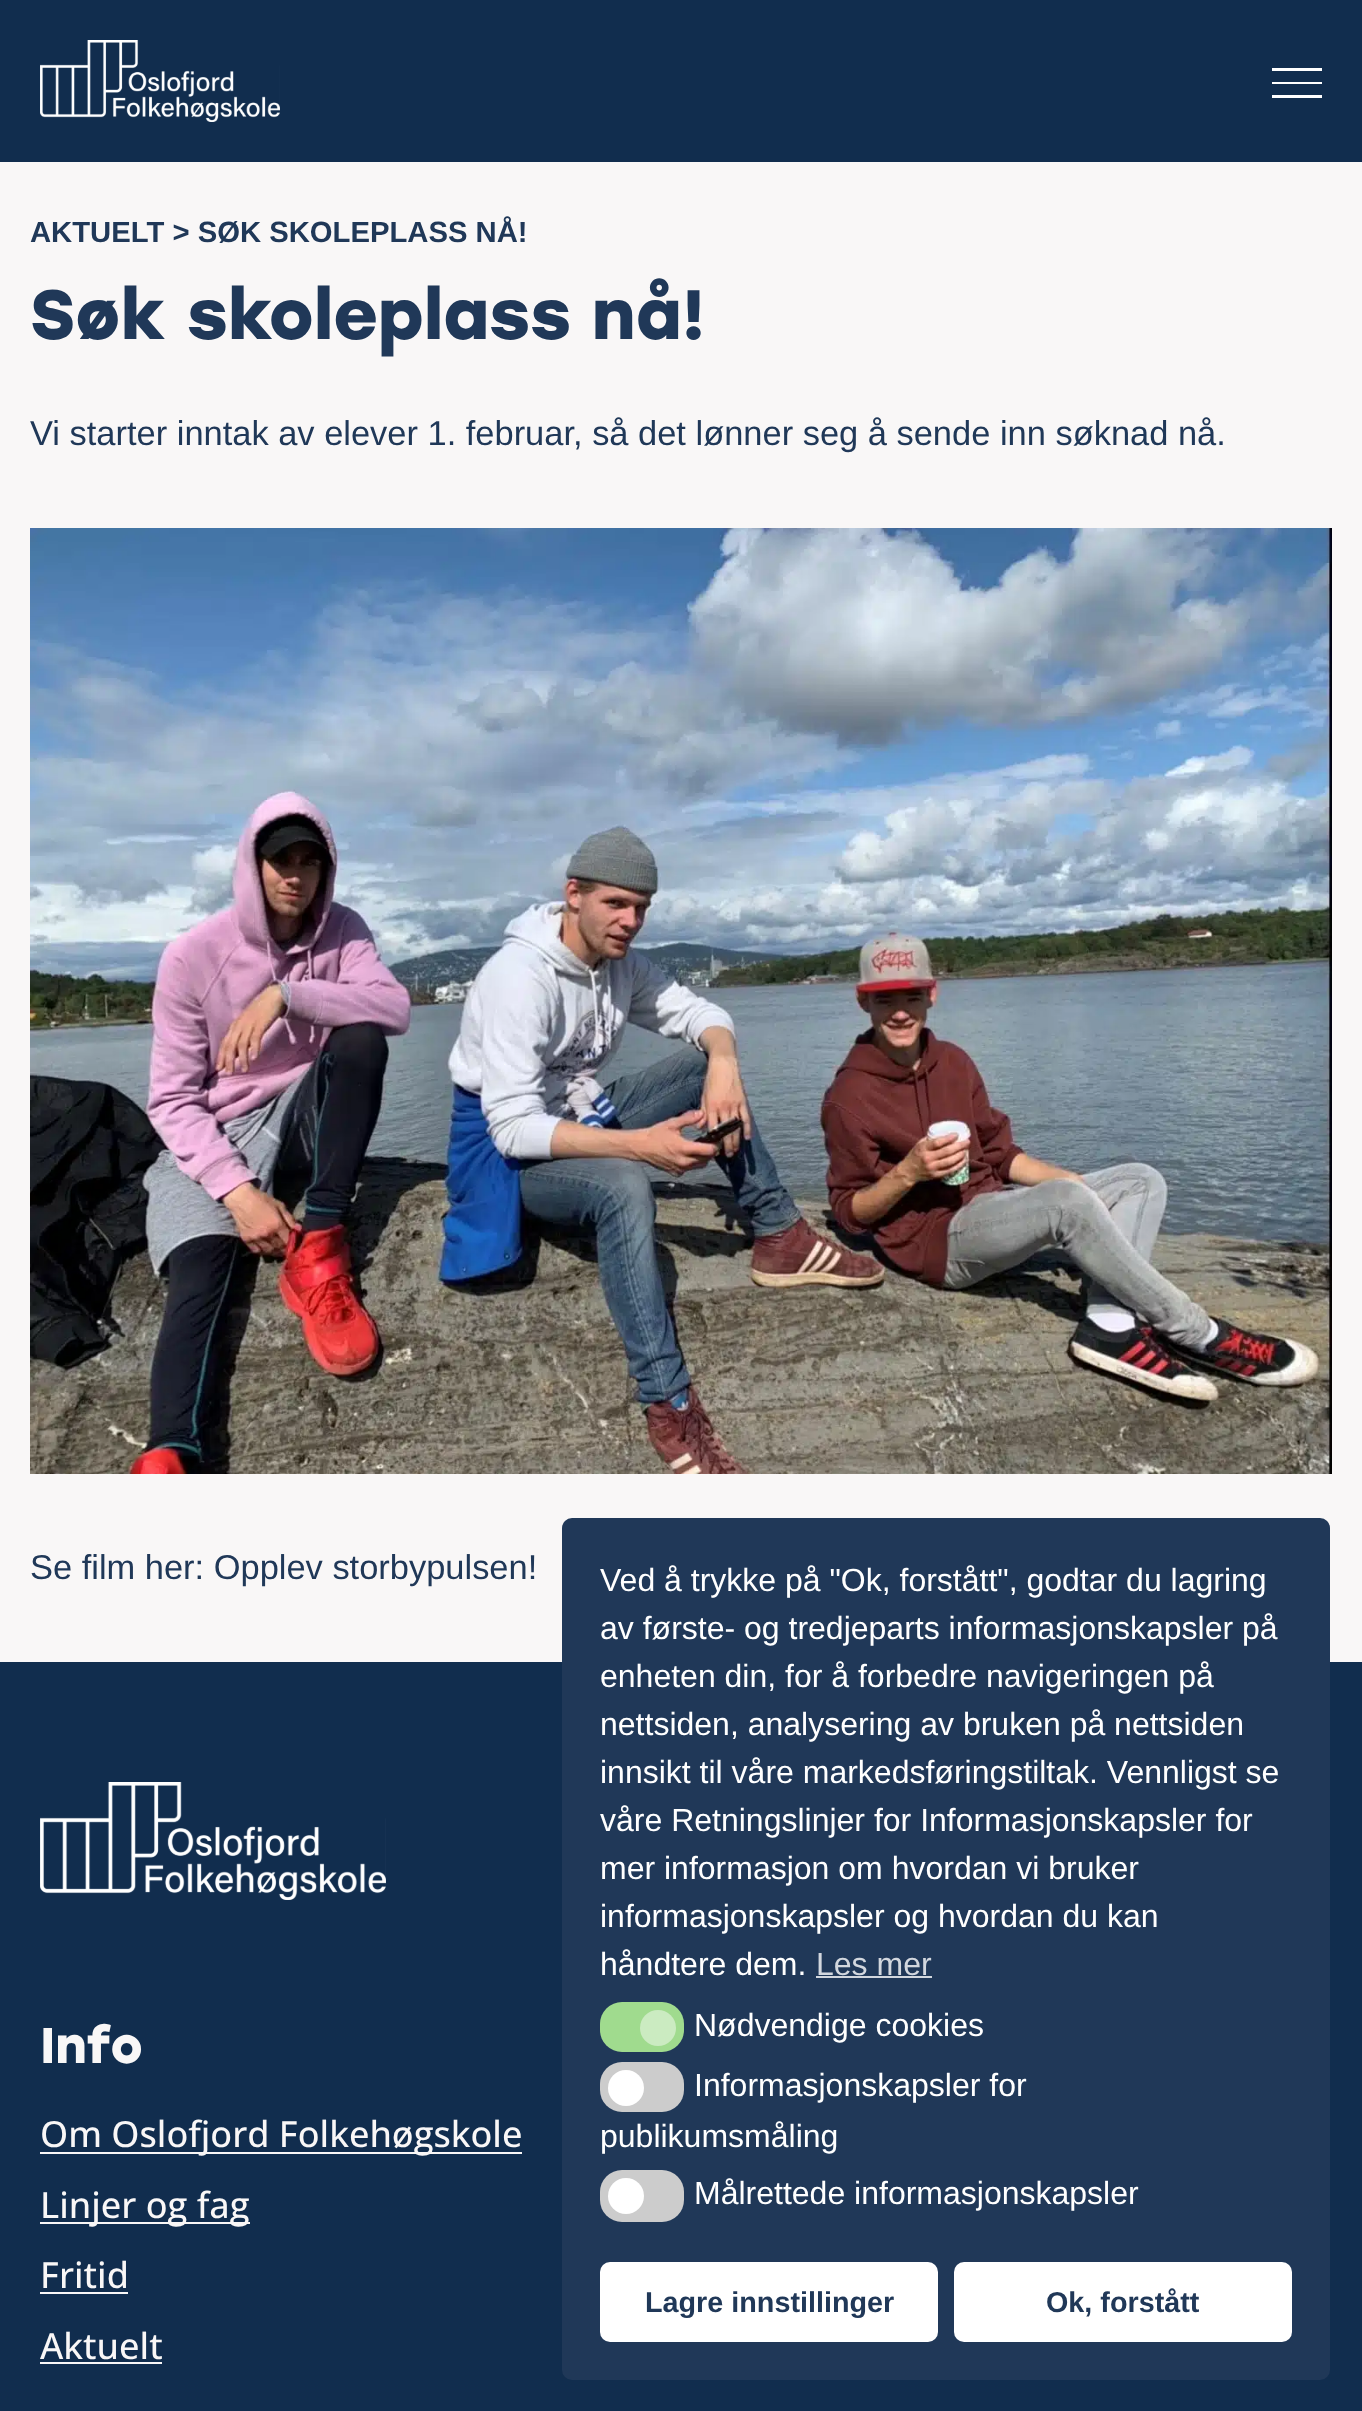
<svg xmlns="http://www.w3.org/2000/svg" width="1362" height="2411">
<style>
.a{font:bold 29.25px Liberation Sans;fill:#203858}
.b{font:bold 69.5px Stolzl;fill:#203858}
.c{font:34.45px Liberation Sans;fill:#203858}
.d{font:bold 50px Stolzl;fill:#f9f7f7}
.e{font:500 36px Open Sans;fill:#f9f7f7}
.f{font:32px Liberation Sans;fill:#fff}
.g{font:32px Liberation Sans;fill:#d2d7de}
.h{font:bold 28.75px Liberation Sans;fill:#203858}
</style>
<rect width="100%" height="100%" fill="#f9f7f7"/>
<path fill="#112d4e" d="M0 0h1362v162H0z"/>
<image href="1.png" x="40" y="40" width="240" height="82"/>
<path fill="#fff" d="M1272 68h50v3H1272z"/>
<path fill="#fff" d="M1272 82h50v2H1272z"/>
<path fill="#fff" d="M1272 95h50v3H1272z"/>
<image href="2.png" x="30" y="528" width="1302" height="946"/>
<path fill="#112d4e" d="M0 1662h1362v749H0z"/>
<image href="3.png" x="40" y="1782" width="346" height="118"/>
<path fill="#f9f7f7" d="M40 2152h482v2H40z"/>
<path fill="#f9f7f7" d="M40 2222h210v2H40z"/>
<path fill="#f9f7f7" d="M40 2292h88v2H40z"/>
<path fill="#f9f7f7" d="M40 2362h122v2H40z"/>
<rect fill="#203858" x="562" y="1518" width="768" height="862" rx="10"/>
<path fill="#d2d7de" d="M816 1976h116v2H816z"/>
<rect fill="#a0db8e" x="600" y="2002" width="84" height="50" rx="22"/>
<circle fill="#cbebc1" cx="658" cy="2028" r="18"/>
<rect fill="#ccc" x="600" y="2062" width="84" height="50" rx="22"/>
<circle fill="#fff" cx="626" cy="2088" r="18"/>
<rect fill="#ccc" x="600" y="2170" width="84" height="52" rx="22"/>
<circle fill="#fff" cx="626" cy="2196" r="18"/>
<rect fill="#fff" x="600" y="2262" width="338" height="80" rx="10"/>
<rect fill="#fff" x="954" y="2262" width="338" height="80" rx="10"/>
<text class="a" x="30" y="242">AKTUELT &gt; SØK SKOLEPLASS NÅ!</text>
<text class="b" x="30" y="339">Søk skoleplass nå!</text>
<text class="c" x="30" y="445">Vi starter inntak av elever 1. februar, så det lønner seg å sende inn søknad nå.</text>
<text class="c" x="30" y="1579">Se film her: Opplev storbypulsen!</text>
<text class="d" x="40" y="2063">Info</text>
<text class="e" x="40" y="2147">Om Oslofjord Folkehøgskole</text>
<text class="e" x="40" y="2218">Linjer og fag</text>
<text class="e" x="40" y="2288">Fritid</text>
<text class="e" x="40" y="2359">Aktuelt</text>
<text class="f" x="600" y="1591">Ved å trykke på "Ok, forstått", godtar du lagring</text>
<text class="f" x="600" y="1639">av første- og tredjeparts informasjonskapsler på</text>
<text class="f" x="600" y="1687">enheten din, for å forbedre navigeringen på</text>
<text class="f" x="600" y="1735">nettsiden, analysering av bruken på nettsiden</text>
<text class="f" x="600" y="1783">innsikt til våre markedsføringstiltak. Vennligst se</text>
<text class="f" x="600" y="1831">våre Retningslinjer for Informasjonskapsler for</text>
<text class="f" x="600" y="1879">mer informasjon om hvordan vi bruker</text>
<text class="f" x="600" y="1927">informasjonskapsler og hvordan du kan</text>
<text class="f" x="600" y="1975">håndtere dem.</text>
<text class="g" x="816" y="1975">Les mer</text>
<text class="f" x="694" y="2036">Nødvendige cookies</text>
<text class="f" x="694" y="2096">Informasjonskapsler for</text>
<text class="f" x="600" y="2147">publikumsmåling</text>
<text class="f" x="694" y="2204">Målrettede informasjonskapsler</text>
<text class="h" x="645" y="2312">Lagre innstillinger</text>
<text class="h" x="1046" y="2312">Ok, forstått</text>
</svg>
